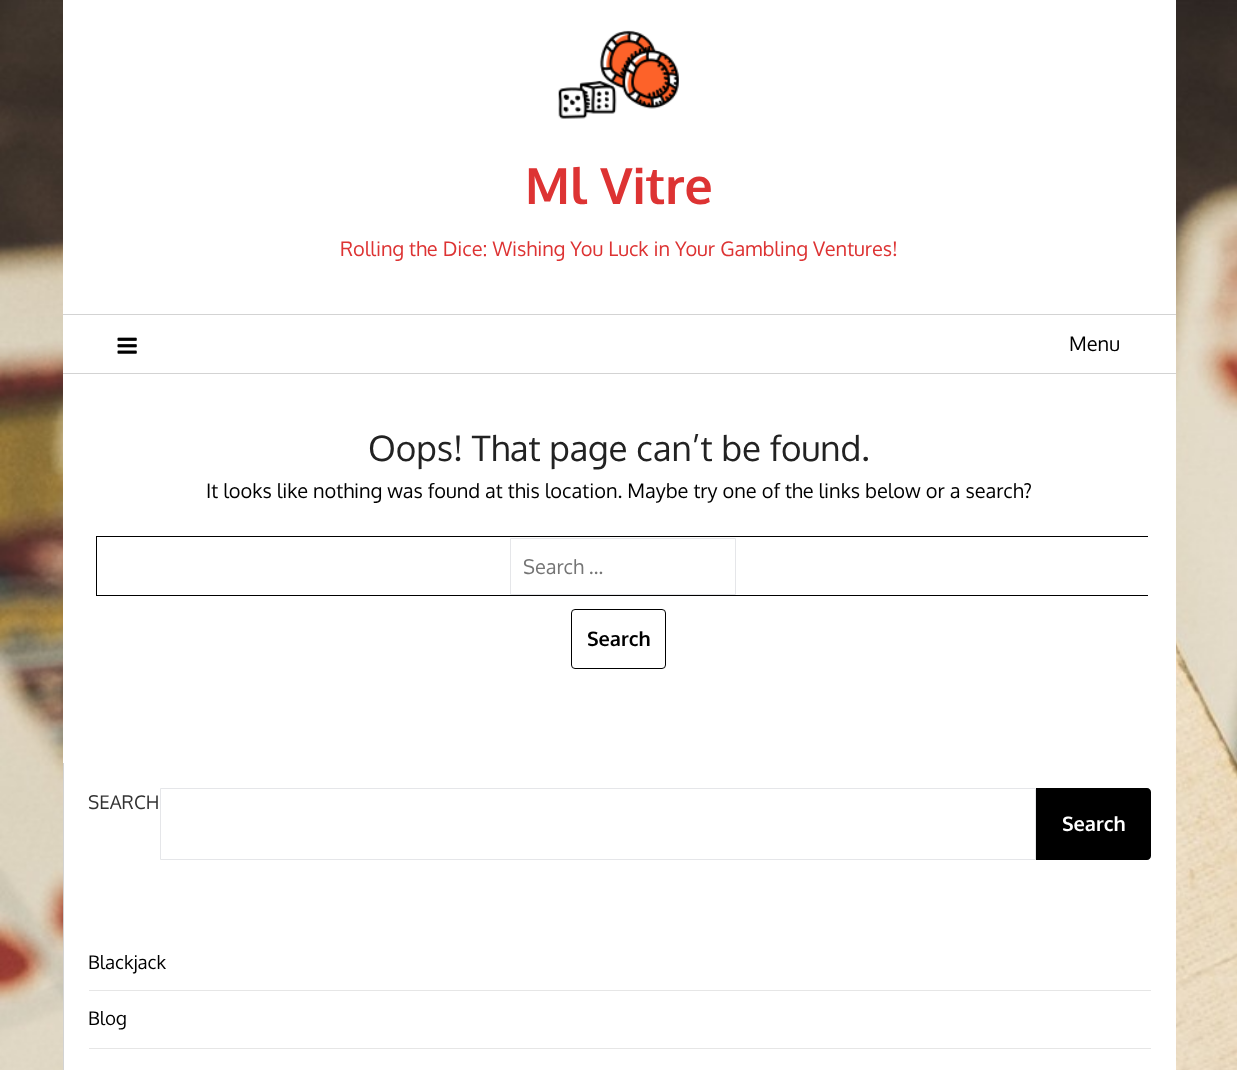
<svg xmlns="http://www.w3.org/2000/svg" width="1237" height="1070">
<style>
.a{font:bold 50px Oxygen;fill:#d33}
.b{font:20px Oxygen;fill:#d33}
.c{font:20px Oxygen;fill:#000}
.d{font:35px Oxygen;fill:#222}
.e{font:20px Oxygen;fill:#757575}
.f{font:bold 20px Oxygen;fill:#000}
.g{font:18.75px Oxygen;fill:#333}
.h{font:bold 20px Oxygen;fill:#fff}
.i{font:18.75px Oxygen;fill:#000}
</style>
<rect width="100%" height="100%" fill="#fff"/>
<image href="1.png" x="0" y="0" width="1237" height="1070"/>
<path fill="#fff" d="M63 0h1113v314H63z"/>
<image href="2.png" x="558" y="30" width="121" height="89"/>
<path fill="#fff" d="M63 315h1113v58H63z"/>
<path fill="#d3d3d3" d="M63 314h1113v1H63z"/>
<path fill="#d3d3d3" d="M63 373h1113v1H63z"/>
<image href="3.png" x="117" y="337" width="20" height="17"/>
<path fill="#fff" d="M63 374h1113v696H63z"/>
<path fill="#000" d="M96 536h1052v1H96z"/>
<path fill="#000" d="M96 595h1052v1H96z"/>
<path fill="#000" d="M96 536h1v60H96z"/>
<path fill="none" stroke="#e5e6e9" d="M510.5 538.5h225v56H510.5z"/>
<rect fill="none" stroke="#000" x="571.5" y="609.5" width="94" height="59" rx="3.5"/>
<path fill="#d3d3d3" d="M63 763h1v307H63z"/>
<path fill="none" stroke="#e5e6e9" d="M160.5 788.5h875v71H160.5z"/>
<path fill="#000" d="M1036 788h111c2 0 4 2 4 4v64c0 2-2 4-4 4h-111z"/>
<path fill="#e6e6e6" d="M89 990h1062v1H89z"/>
<path fill="#e6e6e6" d="M89 1048h1062v1H89z"/>
<text class="a" x="525" y="204">Ml Vitre</text>
<text class="b" x="340" y="256">Rolling the Dice: Wishing You Luck in Your Gambling Ventures!</text>
<text class="c" x="1069" y="351">Menu</text>
<text class="d" x="368" y="461">Oops! That page can’t be found.</text>
<text class="c" x="206" y="498">It looks like nothing was found at this location. Maybe try one of the links below or a search?</text>
<text class="e" x="523" y="574">Search …</text>
<text class="f" x="587" y="646">Search</text>
<text class="g" x="88" y="809">SEARCH</text>
<text class="h" x="1062" y="831">Search</text>
<text class="i" x="88" y="969">Blackjack</text>
<text class="i" x="88" y="1025">Blog</text>
</svg>
